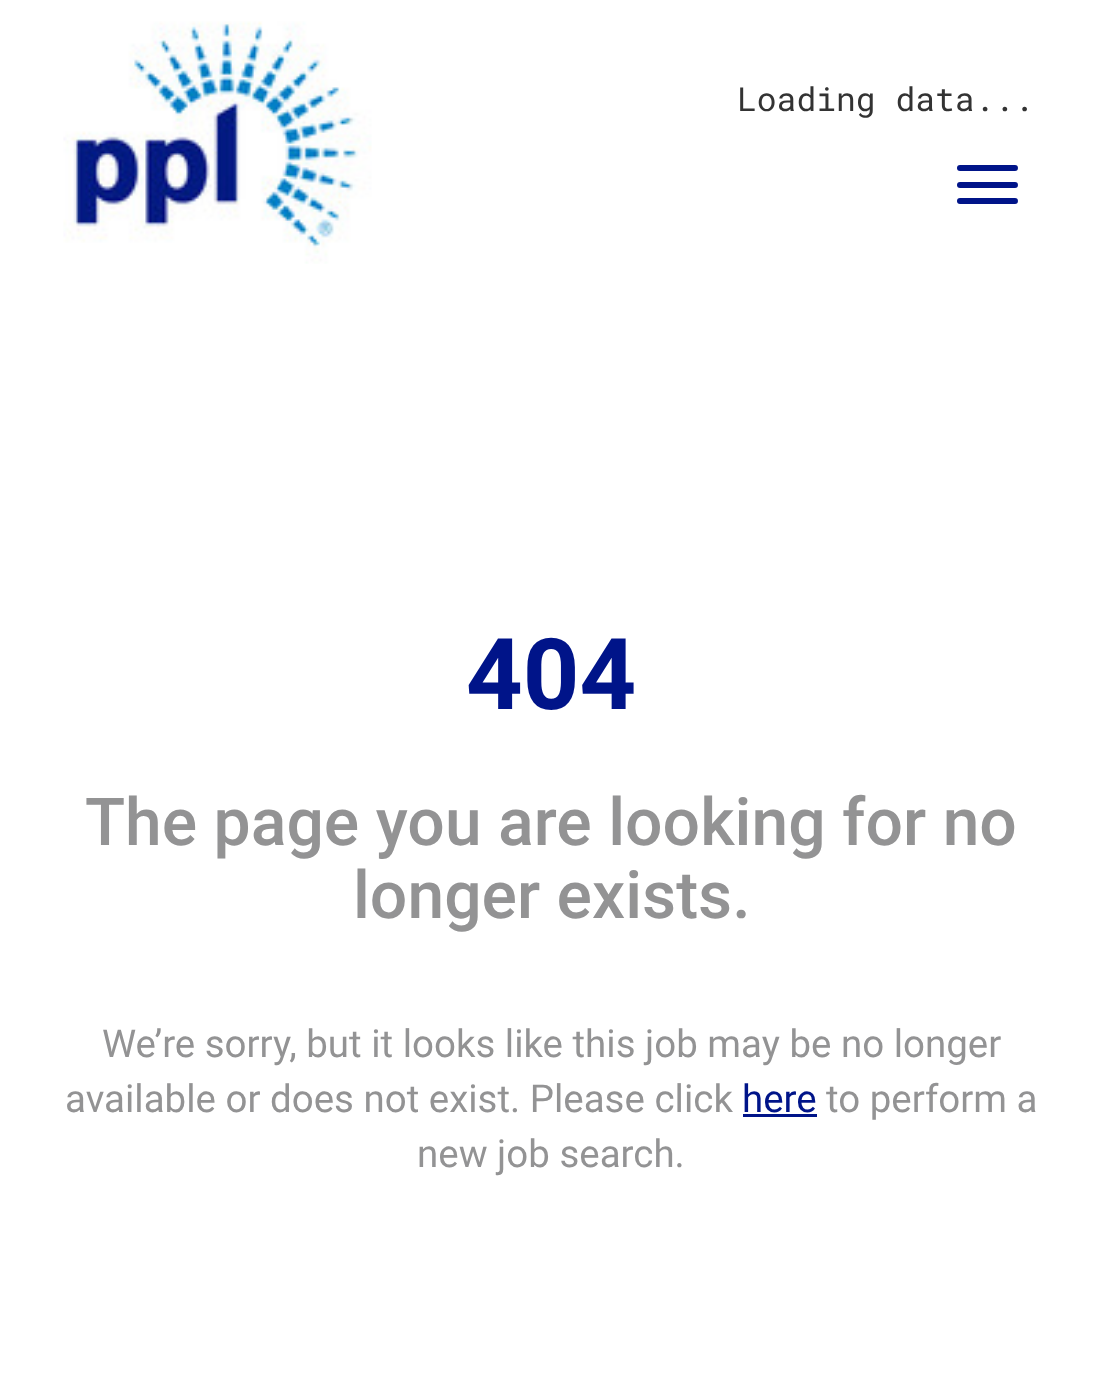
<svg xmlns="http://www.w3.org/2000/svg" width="1101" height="1399">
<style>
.a{font:33px Roboto Mono;fill:#333}
.b{font:bold 99px Roboto;fill:#001489}
.c{font:500 66px Roboto;fill:#939394}
.d{font:38.5px Roboto;fill:#939394}
.e{font:38.5px Roboto;fill:#001489}
</style>
<rect width="100%" height="100%" fill="#fff"/>
<image href="1.png" x="63" y="21" width="309" height="243"/>
<rect fill="#001489" x="957" y="165" width="61" height="6" rx="3"/>
<rect fill="#001489" x="957" y="182" width="61" height="6" rx="3"/>
<rect fill="#001489" x="957" y="198" width="61" height="6" rx="3"/>
<path fill="#001489" d="M743 1114h74v3H743z"/>
<text class="a" x="737" y="111">Loading data...</text>
<text class="b" x="466" y="709">404</text>
<text class="c" x="85" y="845">The page you are looking for no</text>
<text class="c" x="353" y="918">longer exists.</text>
<text class="d" x="102" y="1057">We’re sorry, but it looks like this job may be no longer</text>
<text class="d" x="65" y="1112">available or does not exist. Please click</text>
<text class="e" x="742" y="1112">here</text>
<text class="d" x="826" y="1112">to perform a</text>
<text class="d" x="417" y="1167">new job search.</text>
</svg>
